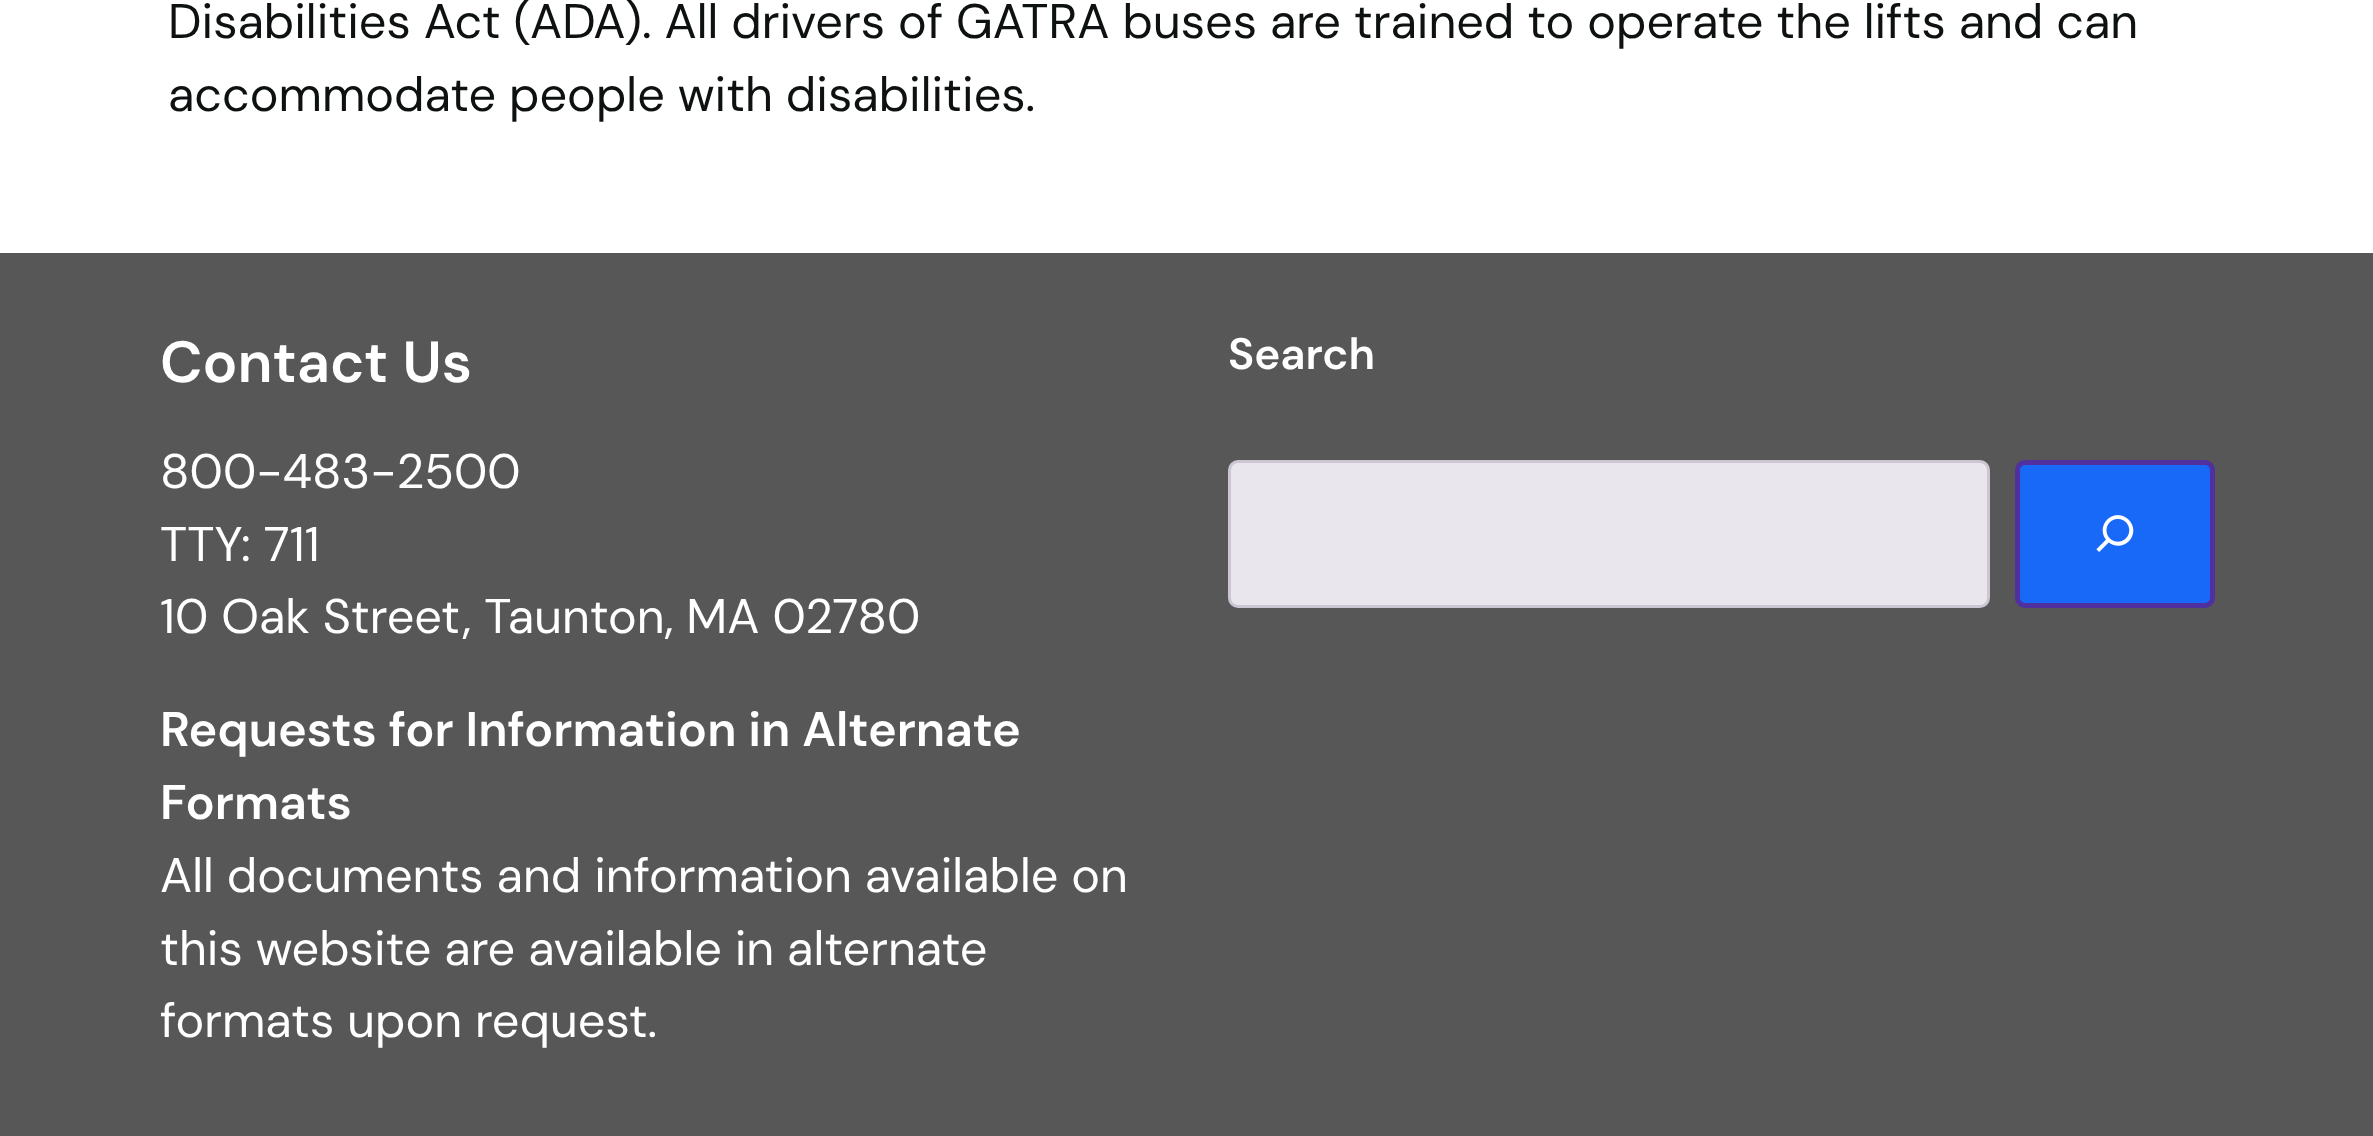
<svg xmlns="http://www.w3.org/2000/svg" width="2373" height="1136">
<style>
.a{font:48.55px DM Sans;fill:#0e1111}
.b{font:600 58px DM Sans;fill:#fff}
.c{font:48.55px DM Sans;fill:#fff}
.d{font:600 48.55px DM Sans;fill:#fff}
.e{font:600 44px DM Sans;fill:#fff}
</style>
<rect width="100%" height="100%" fill="#fff"/>
<path fill="#575757" d="M0 253h2373v883H0z"/>
<rect fill="#e9e6ed" stroke="#cbc6d1" stroke-width="3" x="1229.5" y="461.5" width="759" height="145" rx="8.5"/>
<rect fill="#1969f9" stroke="#4f309e" stroke-width="5" x="2017.5" y="462.5" width="195" height="143" rx="7.5"/>
<image href="1.png" x="2096" y="515" width="38" height="37"/>
<text class="a" x="168" y="38">Disabilities Act (ADA). All drivers of GATRA buses are trained to operate the lifts and can</text>
<text class="a" x="168" y="111">accommodate people with disabilities.</text>
<text class="b" x="160" y="382">Contact Us</text>
<text class="c" x="160" y="488">800-483-2500</text>
<text class="c" x="160" y="561">TTY: 711</text>
<text class="c" x="160" y="633">10 Oak Street, Taunton, MA 02780</text>
<text class="d" x="160" y="746">Requests for Information in Alternate</text>
<text class="d" x="160" y="819">Formats</text>
<text class="c" x="160" y="892">All documents and information available on</text>
<text class="c" x="160" y="965">this website are available in alternate</text>
<text class="c" x="160" y="1037">formats upon request.</text>
<text class="e" x="1228" y="369">Search</text>
</svg>
